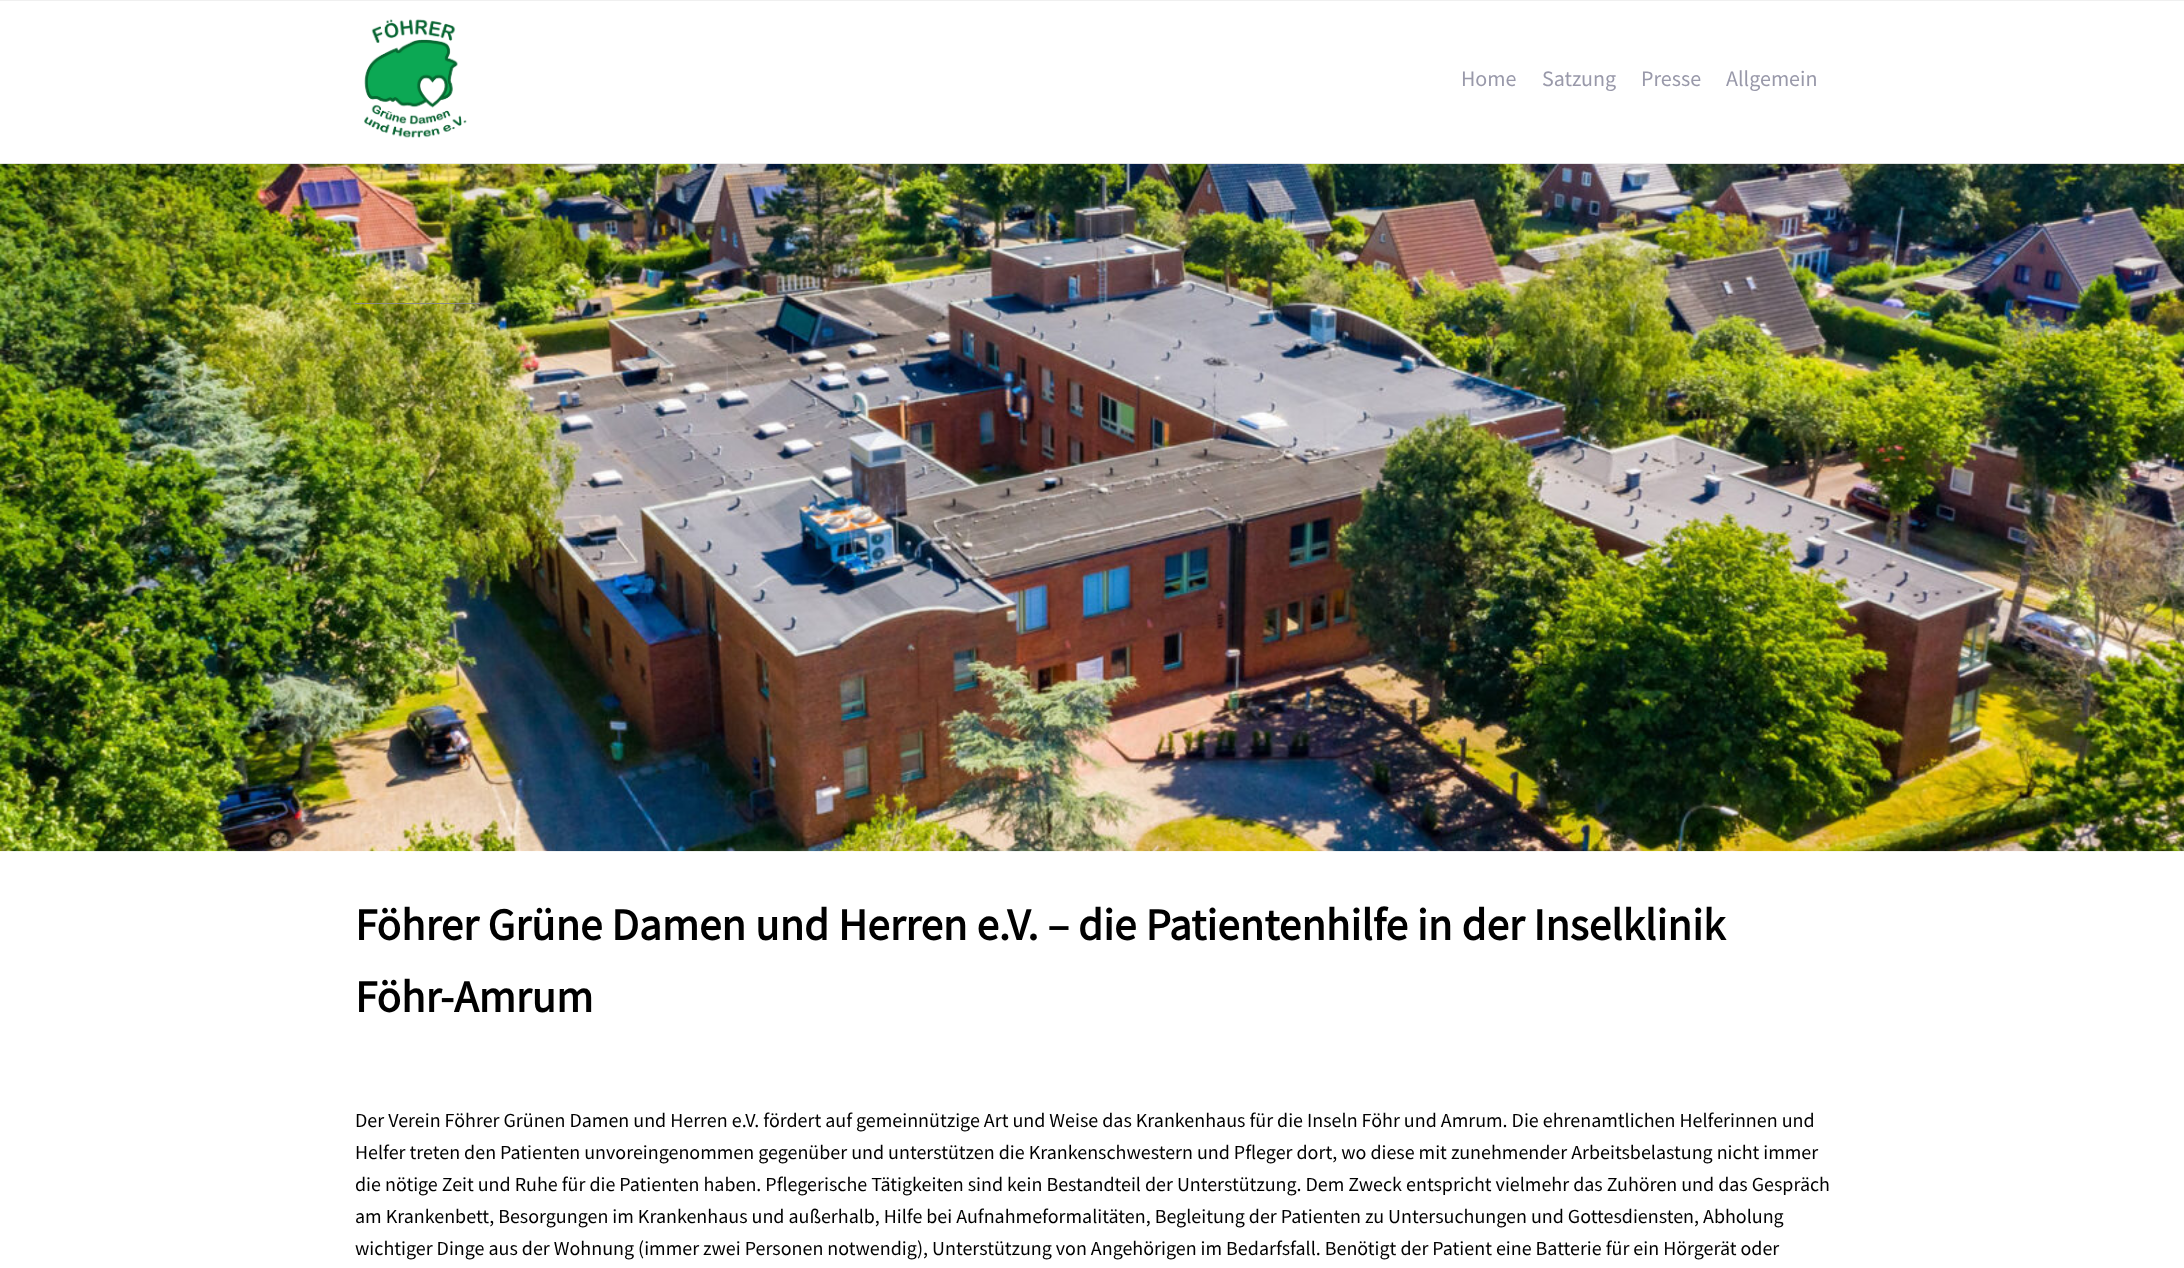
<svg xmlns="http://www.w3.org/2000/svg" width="2184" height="1268">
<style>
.a{font:22px Source Sans Pro;fill:#99a}
.b{font:bold 45px Source Sans Pro;fill:#000}
.c{font:20px Source Sans Pro;fill:#000}
</style>
<rect width="100%" height="100%" fill="#fff"/>
<path fill="#f0f0f0" d="M0 0h2184v1H0z"/>
<path fill="#f0f0f0" d="M0 163h2184v1H0z"/>
<image href="1.png" x="364" y="19" width="103" height="119"/>
<image href="2.png" x="0" y="163" width="2184" height="689"/>
<path fill="#888" d="M355 303h125v1H355z"/>
<text class="a" x="1461" y="86">Home</text>
<text class="a" x="1542" y="86">Satzung</text>
<text class="a" x="1641" y="86">Presse</text>
<text class="a" x="1726" y="86">Allgemein</text>
<text class="b" x="355" y="940">Föhrer Grüne Damen und Herren e.V. – die Patientenhilfe in der Inselklinik</text>
<text class="b" x="355" y="1012">Föhr-Amrum</text>
<text class="c" x="355" y="1127">Der Verein Föhrer Grünen Damen und Herren e.V. fördert auf gemeinnützige Art und Weise das Krankenhaus für die Inseln Föhr und Amrum. Die ehrenamtlichen Helferinnen und</text>
<text class="c" x="355" y="1159">Helfer treten den Patienten unvoreingenommen gegenüber und unterstützen die Krankenschwestern und Pfleger dort, wo diese mit zunehmender Arbeitsbelastung nicht immer</text>
<text class="c" x="355" y="1191">die nötige Zeit und Ruhe für die Patienten haben. Pflegerische Tätigkeiten sind kein Bestandteil der Unterstützung. Dem Zweck entspricht vielmehr das Zuhören und das Gespräch</text>
<text class="c" x="355" y="1223">am Krankenbett, Besorgungen im Krankenhaus und außerhalb, Hilfe bei Aufnahmeformalitäten, Begleitung der Patienten zu Untersuchungen und Gottesdiensten, Abholung</text>
<text class="c" x="355" y="1255">wichtiger Dinge aus der Wohnung (immer zwei Personen notwendig), Unterstützung von Angehörigen im Bedarfsfall. Benötigt der Patient eine Batterie für ein Hörgerät oder</text>
</svg>
